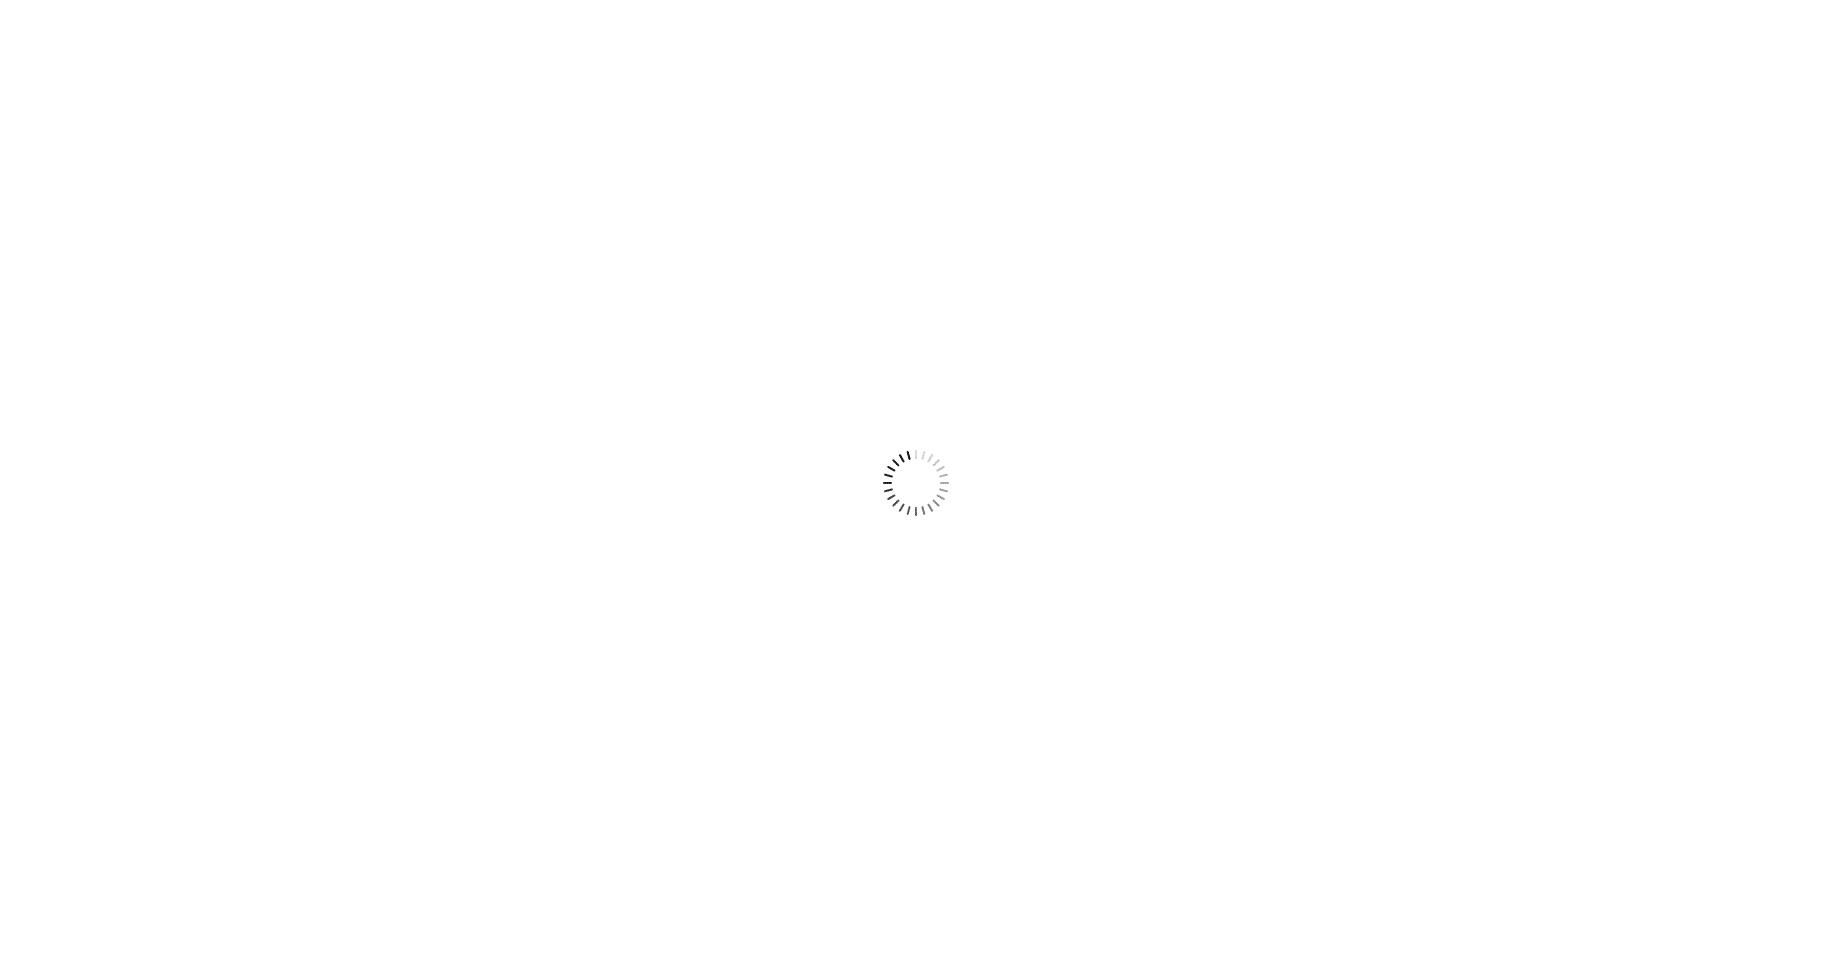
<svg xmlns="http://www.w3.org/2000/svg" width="1832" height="965">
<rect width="100%" height="100%" fill="#fff"/>
<image href="1.png" x="883" y="450" width="66" height="66"/>
</svg>
